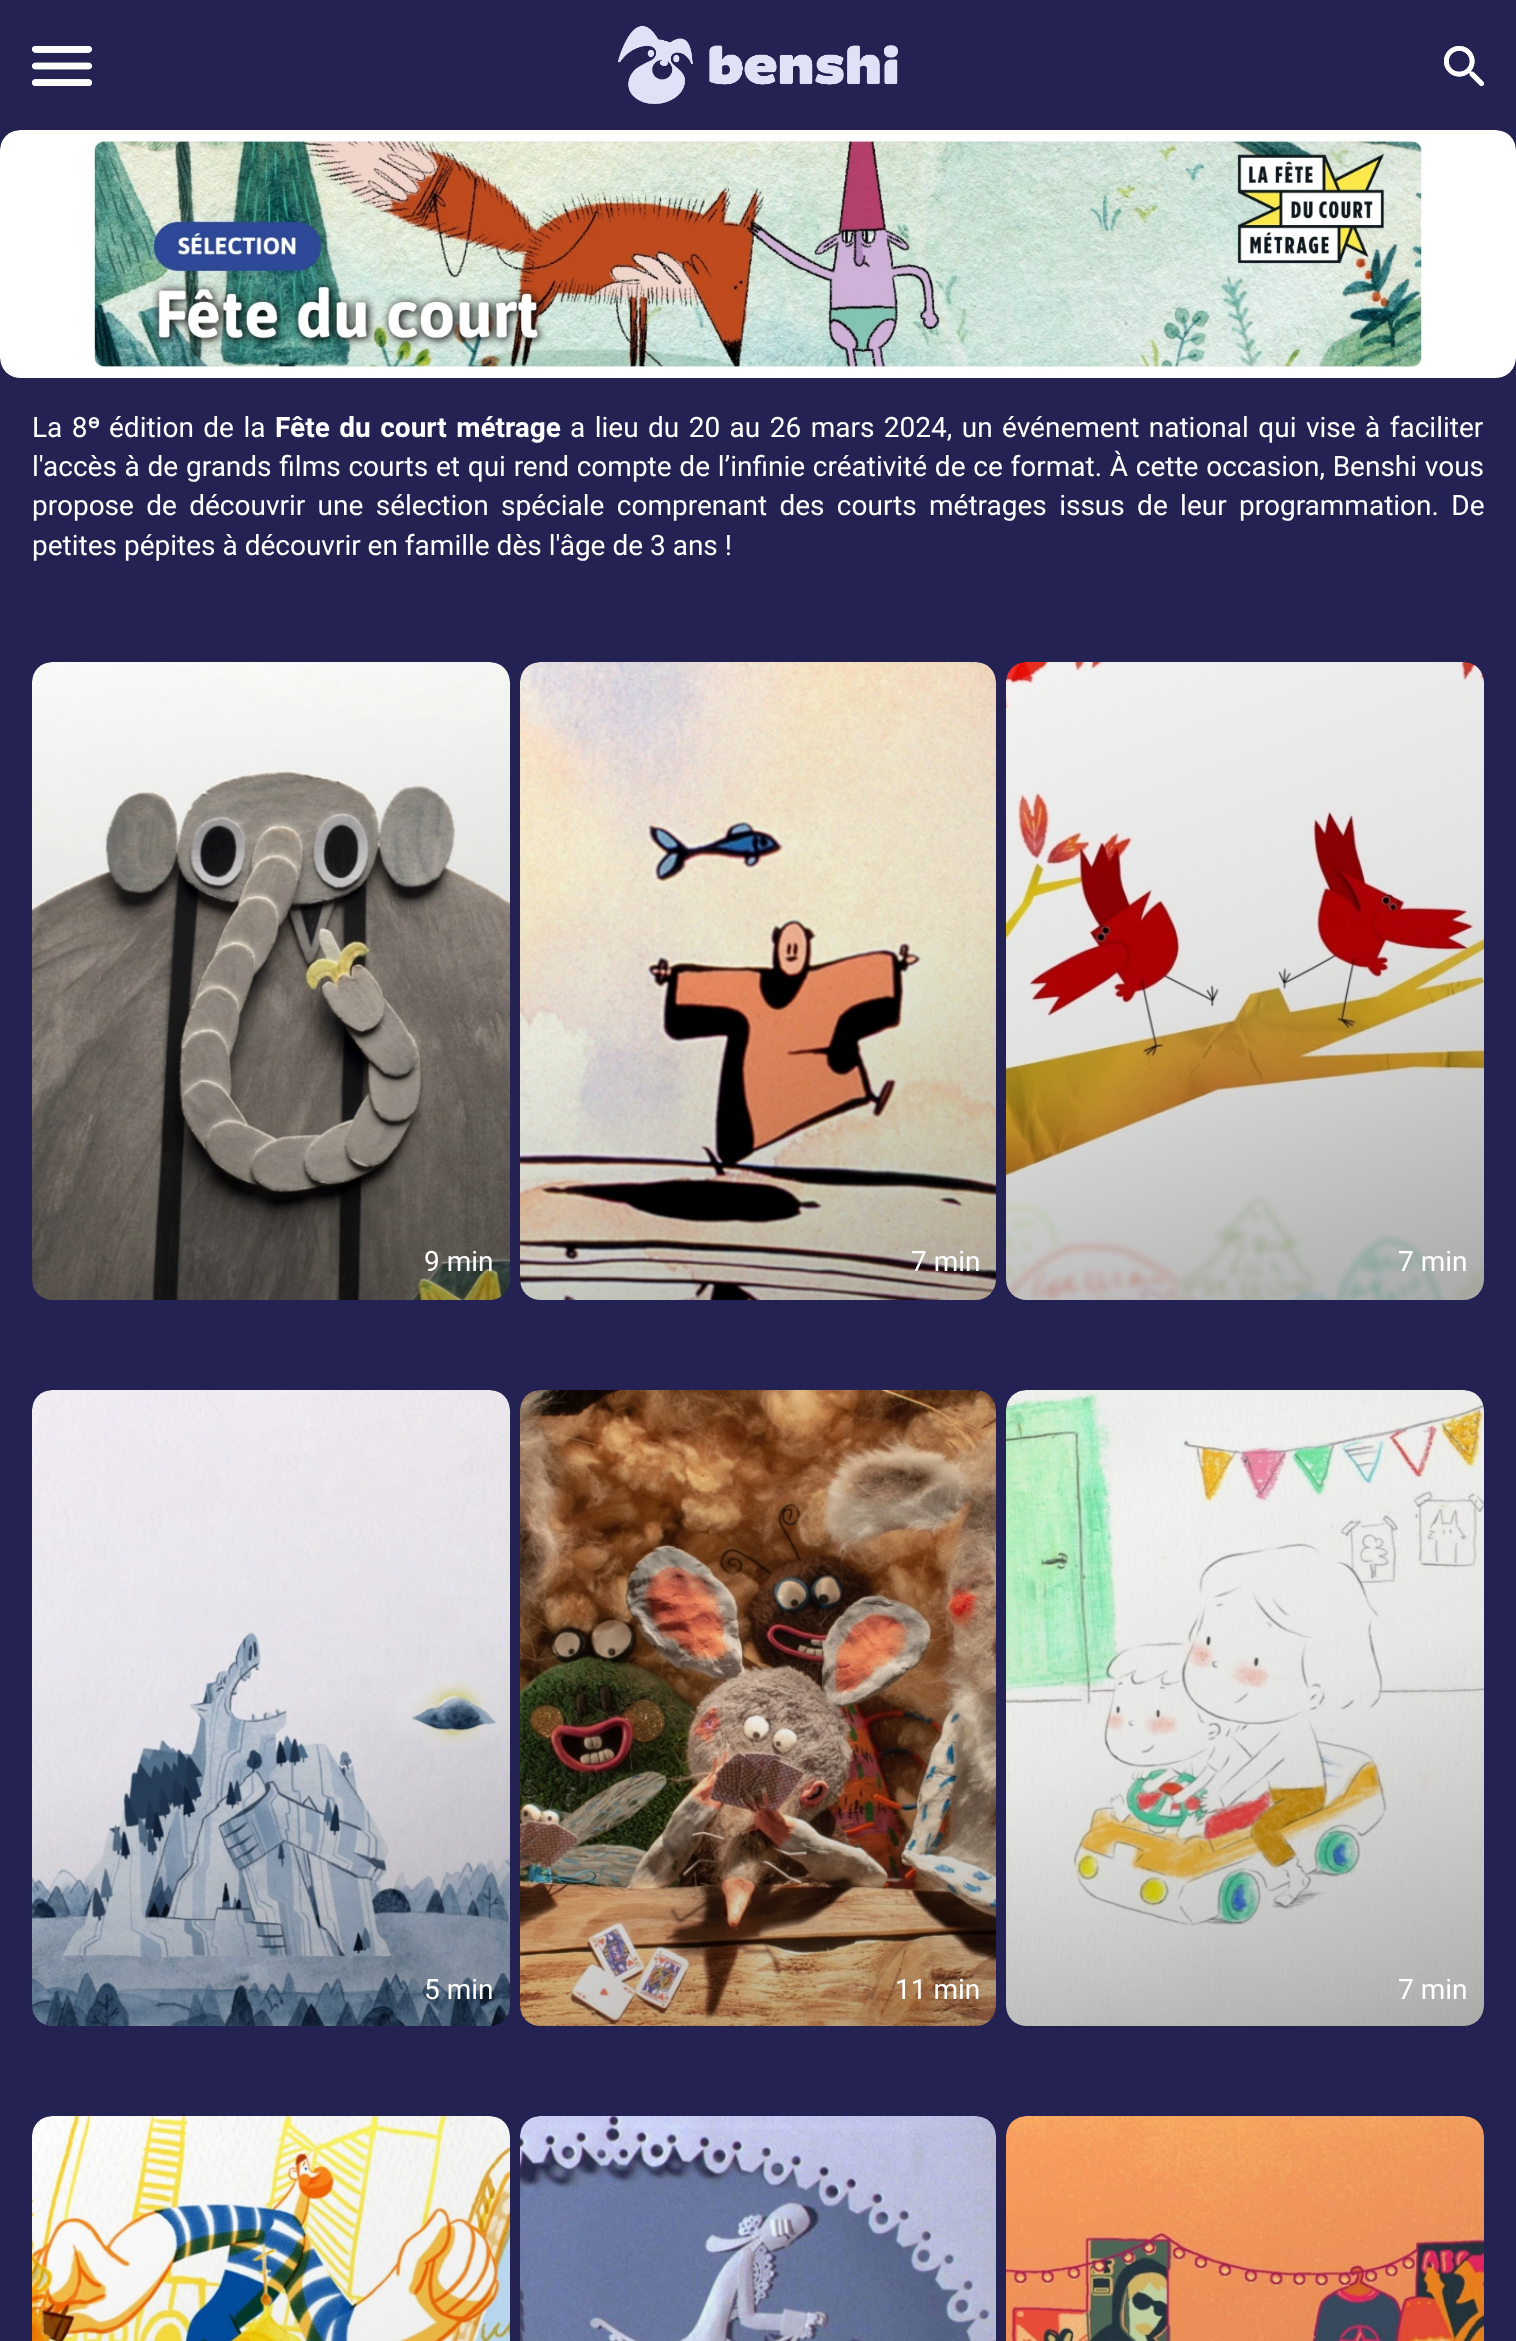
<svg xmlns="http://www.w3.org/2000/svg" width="1516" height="2341">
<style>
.a{font:28px Roboto;fill:#fff}
.b{font:28px 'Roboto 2';fill:#fff}
.c{font:bold 28px Roboto;fill:#fff}
</style>
<defs>
<linearGradient id="g1" gradientUnits="userSpaceOnUse" x1="141" y1="623" x2="401" y2="1339"><stop offset="0" stop-color="#000" stop-opacity="0"/><stop offset="0.5" stop-color="#000" stop-opacity="0.07"/><stop offset="1" stop-color="#000" stop-opacity="0.3"/></linearGradient>
<linearGradient id="g2" gradientUnits="userSpaceOnUse" x1="628" y1="623" x2="888" y2="1339"><stop offset="0" stop-color="#000" stop-opacity="0"/><stop offset="0.5" stop-color="#000" stop-opacity="0.07"/><stop offset="1" stop-color="#000" stop-opacity="0.3"/></linearGradient>
<linearGradient id="g3" gradientUnits="userSpaceOnUse" x1="1115" y1="623" x2="1375" y2="1339"><stop offset="0" stop-color="#000" stop-opacity="0"/><stop offset="0.5" stop-color="#000" stop-opacity="0.07"/><stop offset="1" stop-color="#000" stop-opacity="0.3"/></linearGradient>
<linearGradient id="g4" gradientUnits="userSpaceOnUse" x1="141" y1="1350" x2="401" y2="2066"><stop offset="0" stop-color="#000" stop-opacity="0"/><stop offset="0.5" stop-color="#000" stop-opacity="0.07"/><stop offset="1" stop-color="#000" stop-opacity="0.3"/></linearGradient>
<linearGradient id="g5" gradientUnits="userSpaceOnUse" x1="628" y1="1351" x2="888" y2="2065"><stop offset="0" stop-color="#000" stop-opacity="0"/><stop offset="0.5" stop-color="#000" stop-opacity="0.07"/><stop offset="1" stop-color="#000" stop-opacity="0.3"/></linearGradient>
<linearGradient id="g6" gradientUnits="userSpaceOnUse" x1="1115" y1="1350" x2="1375" y2="2066"><stop offset="0" stop-color="#000" stop-opacity="0"/><stop offset="0.5" stop-color="#000" stop-opacity="0.07"/><stop offset="1" stop-color="#000" stop-opacity="0.3"/></linearGradient>
<linearGradient id="g7" gradientUnits="userSpaceOnUse" x1="141" y1="2077" x2="401" y2="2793"><stop offset="0" stop-color="#000" stop-opacity="0"/><stop offset="0.5" stop-color="#000" stop-opacity="0.07"/><stop offset="1" stop-color="#000" stop-opacity="0.3"/></linearGradient>
<linearGradient id="g8" gradientUnits="userSpaceOnUse" x1="628" y1="2077" x2="888" y2="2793"><stop offset="0" stop-color="#000" stop-opacity="0"/><stop offset="0.5" stop-color="#000" stop-opacity="0.07"/><stop offset="1" stop-color="#000" stop-opacity="0.3"/></linearGradient>
<linearGradient id="g9" gradientUnits="userSpaceOnUse" x1="1115" y1="2077" x2="1375" y2="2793"><stop offset="0" stop-color="#000" stop-opacity="0"/><stop offset="0.5" stop-color="#000" stop-opacity="0.07"/><stop offset="1" stop-color="#000" stop-opacity="0.3"/></linearGradient>
</defs>
<rect width="100%" height="100%" fill="#232252"/>
<image href="1.png" x="32" y="46" width="60" height="40"/>
<image href="2.png" x="618" y="25" width="280" height="79"/>
<image href="3.png" x="1444" y="46" width="40" height="40"/>
<image href="4.png" x="0" y="130" width="1516" height="248"/>
<image href="5.png" x="32" y="662" width="478" height="638"/>
<rect fill="url(#g1)" x="32" y="662" width="478" height="638" rx="20"/>
<image href="6.png" x="520" y="662" width="476" height="638"/>
<rect fill="url(#g2)" x="520" y="662" width="476" height="638" rx="20"/>
<image href="7.png" x="1006" y="662" width="478" height="638"/>
<rect fill="url(#g3)" x="1006" y="662" width="478" height="638" rx="20"/>
<image href="8.png" x="32" y="1390" width="478" height="636"/>
<rect fill="url(#g4)" x="32" y="1390" width="478" height="636" rx="20"/>
<image href="9.png" x="520" y="1390" width="476" height="636"/>
<rect fill="url(#g5)" x="520" y="1390" width="476" height="636" rx="20"/>
<image href="10.png" x="1006" y="1390" width="478" height="636"/>
<rect fill="url(#g6)" x="1006" y="1390" width="478" height="636" rx="20"/>
<image href="11.png" x="32" y="2116" width="478" height="225"/>
<path fill="url(#g7)" d="M32 2116h478v225H32z"/>
<image href="12.png" x="520" y="2116" width="476" height="225"/>
<path fill="url(#g8)" d="M520 2116h476v225H520z"/>
<image href="13.png" x="1006" y="2116" width="478" height="225"/>
<path fill="url(#g9)" d="M1006 2116h478v225H1006z"/>
<text class="a" x="32" y="437" word-spacing="2.5">La 8</text>
<text class="b" x="88" y="437">ᶱ</text>
<text class="a" x="109" y="437" word-spacing="2.5">édition de la</text>
<text class="c" x="275" y="437" word-spacing="2.5">Fête du court métrage</text>
<text class="a" x="570" y="437" word-spacing="2.5">a lieu du 20 au 26 mars 2024, un événement national qui vise à faciliter</text>
<text class="a" x="32" y="476" word-spacing="0.8">l'accès à de grands films courts et qui rend compte de l’infinie créativité de ce format. À cette occasion, Benshi vous</text>
<text class="a" x="32" y="515" word-spacing="5.4">propose de découvrir une sélection spéciale comprenant des courts métrages issus de leur programmation. De</text>
<text class="a" x="32" y="555">petites pépites à découvrir en famille dès l'âge de 3 ans !</text>
<text class="a" x="424" y="1271">9 min</text>
<text class="a" x="911" y="1271">7 min</text>
<text class="a" x="1398" y="1271">7 min</text>
<text class="a" x="424" y="1999">5 min</text>
<text class="a" x="895" y="1999">11 min</text>
<text class="a" x="1398" y="1999">7 min</text>
</svg>
